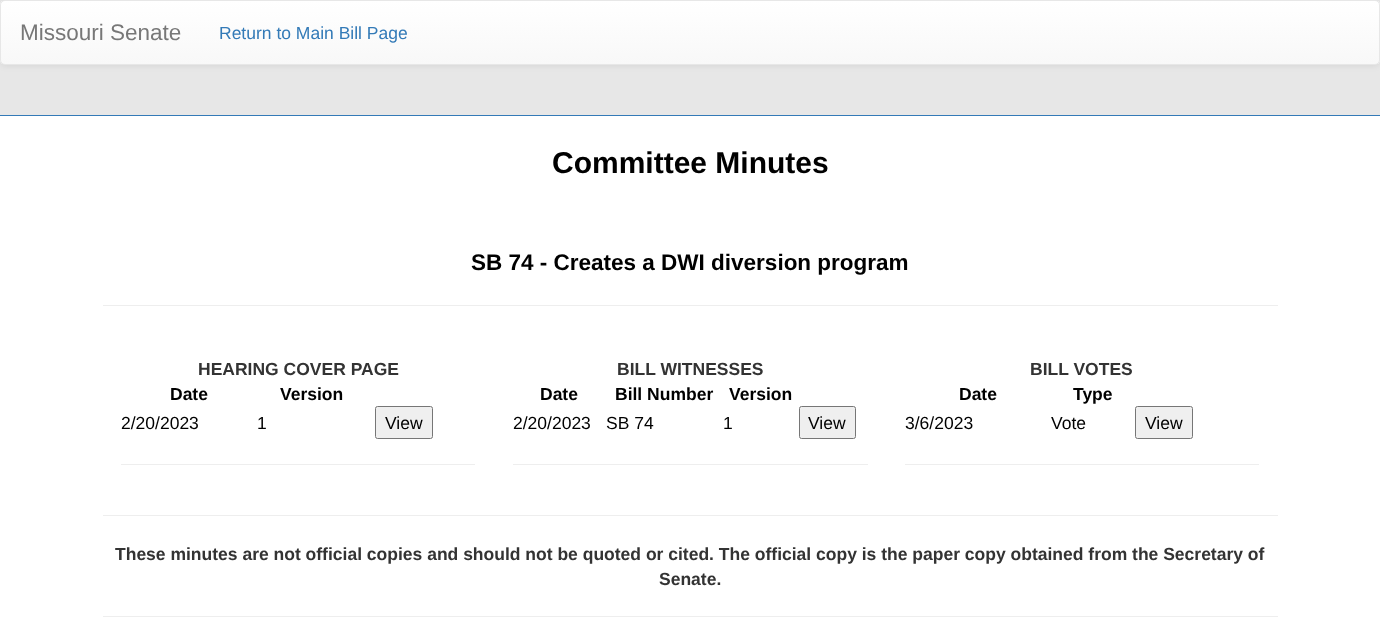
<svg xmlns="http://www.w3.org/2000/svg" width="1380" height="623">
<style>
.a{font:22.5px Liberation Sans;fill:#777}
.b{font:17.5px Liberation Sans;fill:#337ab7}
.c{font:bold 30px Liberation Sans;fill:#000}
.d{font:bold 22.5px Liberation Sans;fill:#000}
.e{font:bold 17.5px Liberation Sans;fill:#333}
.f{font:bold 17.5px Liberation Sans;fill:#000}
.g{font:17.5px Liberation Sans;fill:#000}
</style>
<defs>
<clipPath id="clip1"><rect width="1380" height="65" rx="5"/></clipPath>
<linearGradient id="g1" gradientUnits="userSpaceOnUse" x1="690" y1="1.2" x2="690" y2="64"><stop offset="0" stop-color="#fff"/><stop offset="1" stop-color="#f8f8f8"/></linearGradient>
</defs>
<rect width="100%" height="100%" fill="#fff"/>
<path fill="#e7e7e7" d="M0 0h1380v115H0z"/>
<path fill="#337ab7" d="M0 115h1380v1H0z"/>
<rect fill="#00000012" filter="blur(3px)" y="1" width="1380" height="65" rx="5"/>
<g clip-path="url(#clip1)">
<path fill="url(#g1)" d="M0 1h1380v63H0z"/>
</g>
<rect fill="none" stroke="#e7e7e7" x="0.5" y="0.5" width="1379" height="64" rx="4.5"/>
<path fill="#eee" d="M103 305h1175v1H103z"/>
<rect fill="#efefef" stroke="#767676" x="375.5" y="406.5" width="57" height="32" rx="2"/>
<path fill="#eee" d="M121 464h354v1H121z"/>
<rect fill="#efefef" stroke="#767676" x="799.5" y="406.5" width="56" height="32" rx="2"/>
<path fill="#eee" d="M513 464h355v1H513z"/>
<rect fill="#efefef" stroke="#767676" x="1135.5" y="406.5" width="57" height="32" rx="2"/>
<path fill="#eee" d="M905 464h354v1H905z"/>
<path fill="#eee" d="M103 515h1175v1H103z"/>
<path fill="#eee" d="M103 616h1175v1H103z"/>
<text class="a" x="20" y="40">Missouri Senate</text>
<text class="b" x="219" y="39">Return to Main Bill Page</text>
<text class="c" x="552" y="173">Committee Minutes</text>
<text class="d" x="471" y="270">SB 74 - Creates a DWI diversion program</text>
<text class="e" x="198" y="375">HEARING COVER PAGE</text>
<text class="f" x="170" y="400">Date</text>
<text class="f" x="280" y="400">Version</text>
<text class="g" x="121" y="429">2/20/2023</text>
<text class="g" x="257" y="429">1</text>
<text class="g" x="385" y="429">View</text>
<text class="e" x="617" y="375">BILL WITNESSES</text>
<text class="f" x="540" y="400">Date</text>
<text class="f" x="615" y="400">Bill Number</text>
<text class="f" x="729" y="400">Version</text>
<text class="g" x="513" y="429">2/20/2023</text>
<text class="g" x="606" y="429">SB 74</text>
<text class="g" x="723" y="429">1</text>
<text class="g" x="808" y="429">View</text>
<text class="e" x="1030" y="375">BILL VOTES</text>
<text class="f" x="959" y="400">Date</text>
<text class="f" x="1073" y="400">Type</text>
<text class="g" x="905" y="429">3/6/2023</text>
<text class="g" x="1051" y="429">Vote</text>
<text class="g" x="1145" y="429">View</text>
<text class="e" x="115" y="560">These minutes are not official copies and should not be quoted or cited. The official copy is the paper copy obtained from the Secretary of</text>
<text class="e" x="659" y="585">Senate.</text>
</svg>
